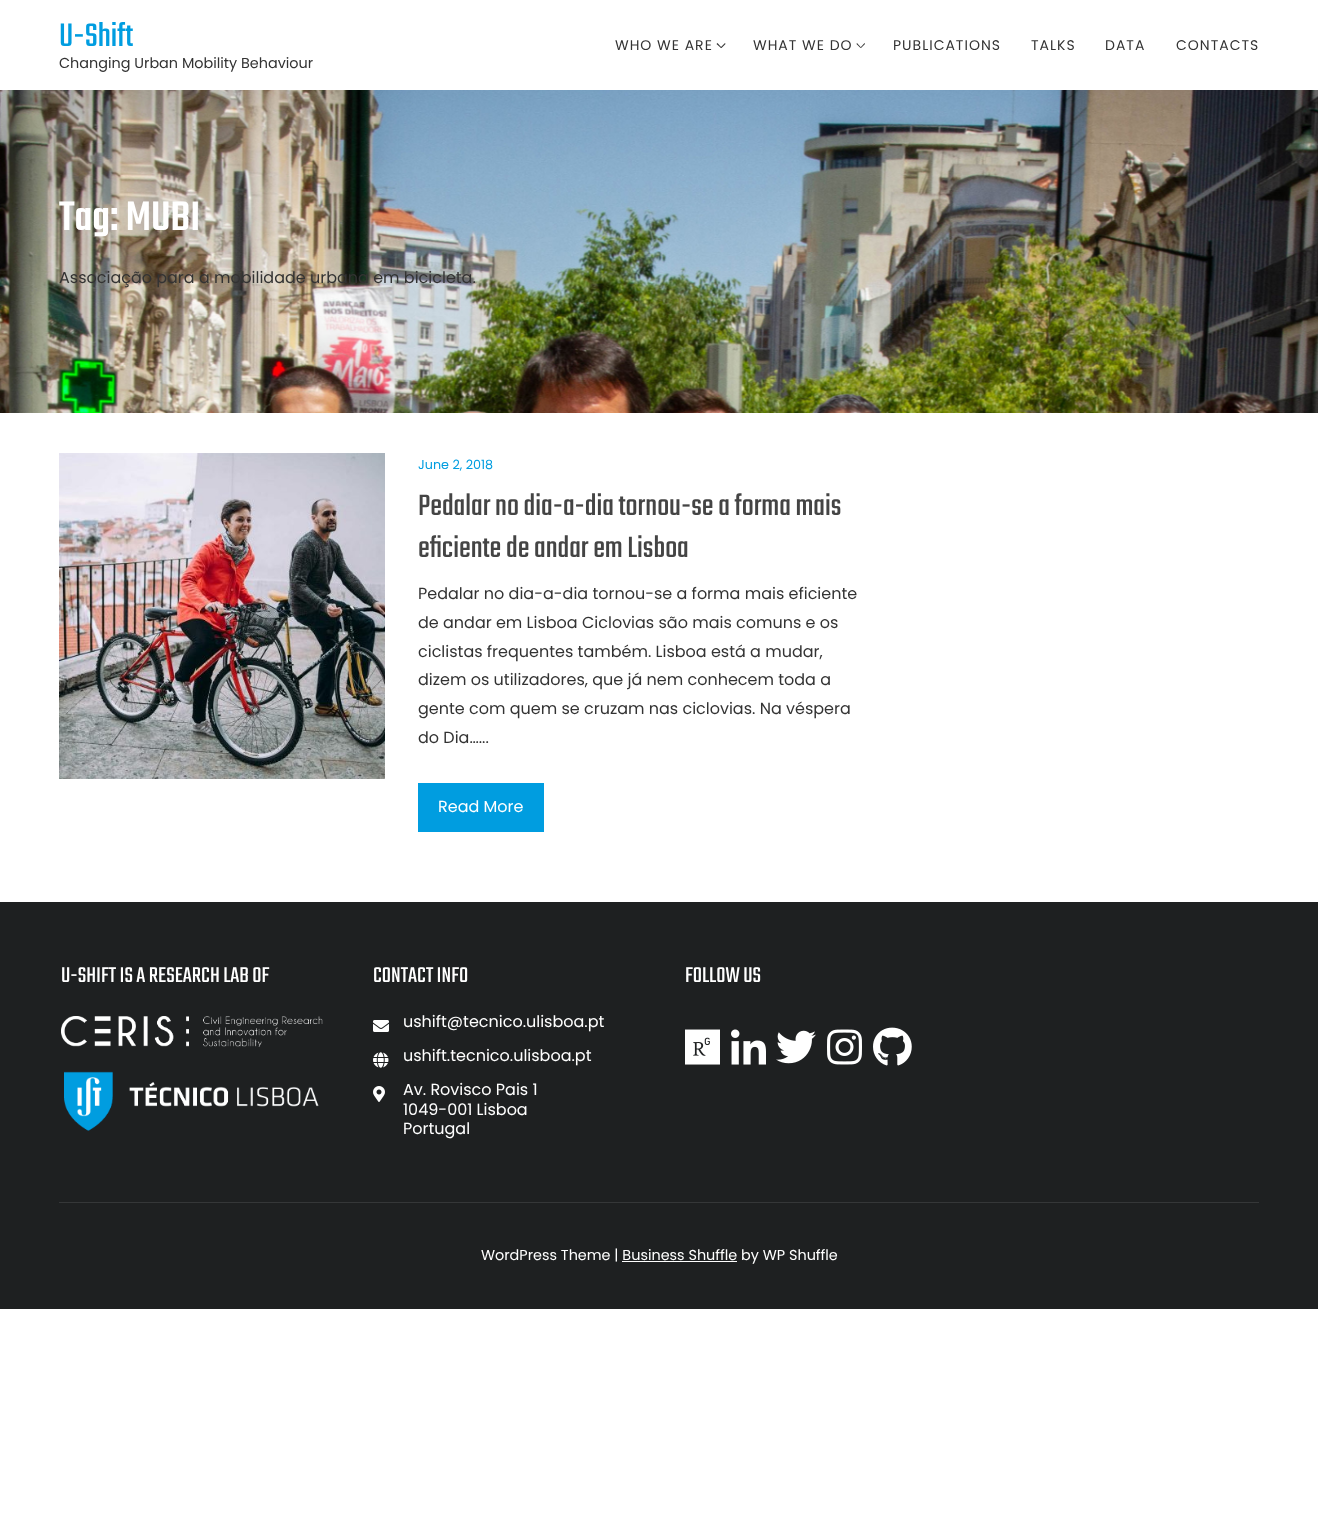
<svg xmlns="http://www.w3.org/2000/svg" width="1318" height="1524">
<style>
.a{font:36px Teko;fill:#009de0}
.b{font:14.4px Poppins;fill:#333}
.c{font:14px Poppins;letter-spacing:1px;fill:#333}
.d{font:500 45px Teko;fill:#fff}
.e{font:16px Poppins;fill:#333}
.f{font:12.75px Poppins;fill:#009de0}
.g{font:32.4px Teko;fill:#444}
.h{font:16px Poppins;fill:#fff}
.i{font:23.5px Teko;fill:#fff}
.j{font:14.4px Poppins;fill:#fff}
</style>
<rect width="100%" height="100%" fill="#fff"/>
<path fill="#333" d="M720.5 47.5l4.5-4.5l.5 1l-4 4z"/>
<path fill="#333" d="M717.5 43l4 4.5l-.5 .5l-4.5-4z"/>
<path fill="#333" d="M860.5 47.5l4-4.5l.5 1l-4 4z"/>
<path fill="#333" d="M857 43l4 4.5l-.5 .5l-4-4z"/>
<image href="1.png" x="0" y="90" width="1318" height="323"/>
<image href="2.png" x="59" y="453" width="326" height="326"/>
<path fill="#009de0" d="M418 783h126v49H418z"/>
<path fill="#1e2021" d="M0 902h1318v407H0z"/>
<image href="3.png" x="61" y="1016" width="262" height="31"/>
<image href="4.png" x="64" y="1071" width="255" height="60"/>
<image href="5.png" x="373" y="1020" width="16" height="12"/>
<image href="6.png" x="373" y="1052" width="16" height="16"/>
<image href="7.png" x="373" y="1086" width="12" height="16"/>
<image href="8.png" x="685" y="1029" width="35" height="36"/>
<image href="9.png" x="731" y="1029" width="35" height="36"/>
<image href="10.png" x="776" y="1030" width="40" height="34"/>
<image href="11.png" x="827" y="1029" width="35" height="36"/>
<image href="12.png" x="873" y="1027" width="39" height="39"/>
<path fill="#353738" d="M59 1202h1200v1H59z"/>
<path fill="#fff" d="M622 1261h115v1H622z"/>
<text class="a" x="59" y="46">U-Shift</text>
<text class="b" x="59" y="68">Changing Urban Mobility Behaviour</text>
<text class="c" x="615" y="50">WHO WE ARE</text>
<text class="c" x="753" y="50">WHAT WE DO</text>
<text class="c" x="893" y="50">PUBLICATIONS</text>
<text class="c" x="1031" y="50">TALKS</text>
<text class="c" x="1105" y="50">DATA</text>
<text class="c" x="1176" y="50">CONTACTS</text>
<text class="d" x="59" y="230">Tag: MUBI</text>
<text class="e" x="59" y="283">Associação para a mobilidade urbana em bicicleta.</text>
<text class="f" x="418" y="469">June 2, 2018</text>
<text class="g" x="418" y="515">Pedalar no dia-a-dia tornou-se a forma mais</text>
<text class="g" x="418" y="557">eficiente de andar em Lisboa</text>
<text class="e" x="418" y="599">Pedalar no dia-a-dia tornou-se a forma mais eficiente</text>
<text class="e" x="418" y="628">de andar em Lisboa Ciclovias são mais comuns e os</text>
<text class="e" x="418" y="657">ciclistas frequentes também. Lisboa está a mudar,</text>
<text class="e" x="418" y="685">dizem os utilizadores, que já nem conhecem toda a</text>
<text class="e" x="418" y="714">gente com quem se cruzam nas ciclovias. Na véspera</text>
<text class="e" x="418" y="743">do Dia…...</text>
<text class="h" x="438" y="812">Read More</text>
<text class="i" x="61" y="982">U-SHIFT IS A RESEARCH LAB OF</text>
<text class="i" x="373" y="982">CONTACT INFO</text>
<text class="h" x="403" y="1027">ushift@tecnico.ulisboa.pt</text>
<text class="h" x="403" y="1061">ushift.tecnico.ulisboa.pt</text>
<text class="h" x="403" y="1095">Av. Rovisco Pais 1</text>
<text class="h" x="403" y="1115">1049-001 Lisboa</text>
<text class="h" x="403" y="1134">Portugal</text>
<text class="i" x="685" y="982">FOLLOW US</text>
<text class="j" x="481" y="1260">WordPress Theme | Business Shuffle by WP Shuffle</text>
</svg>
